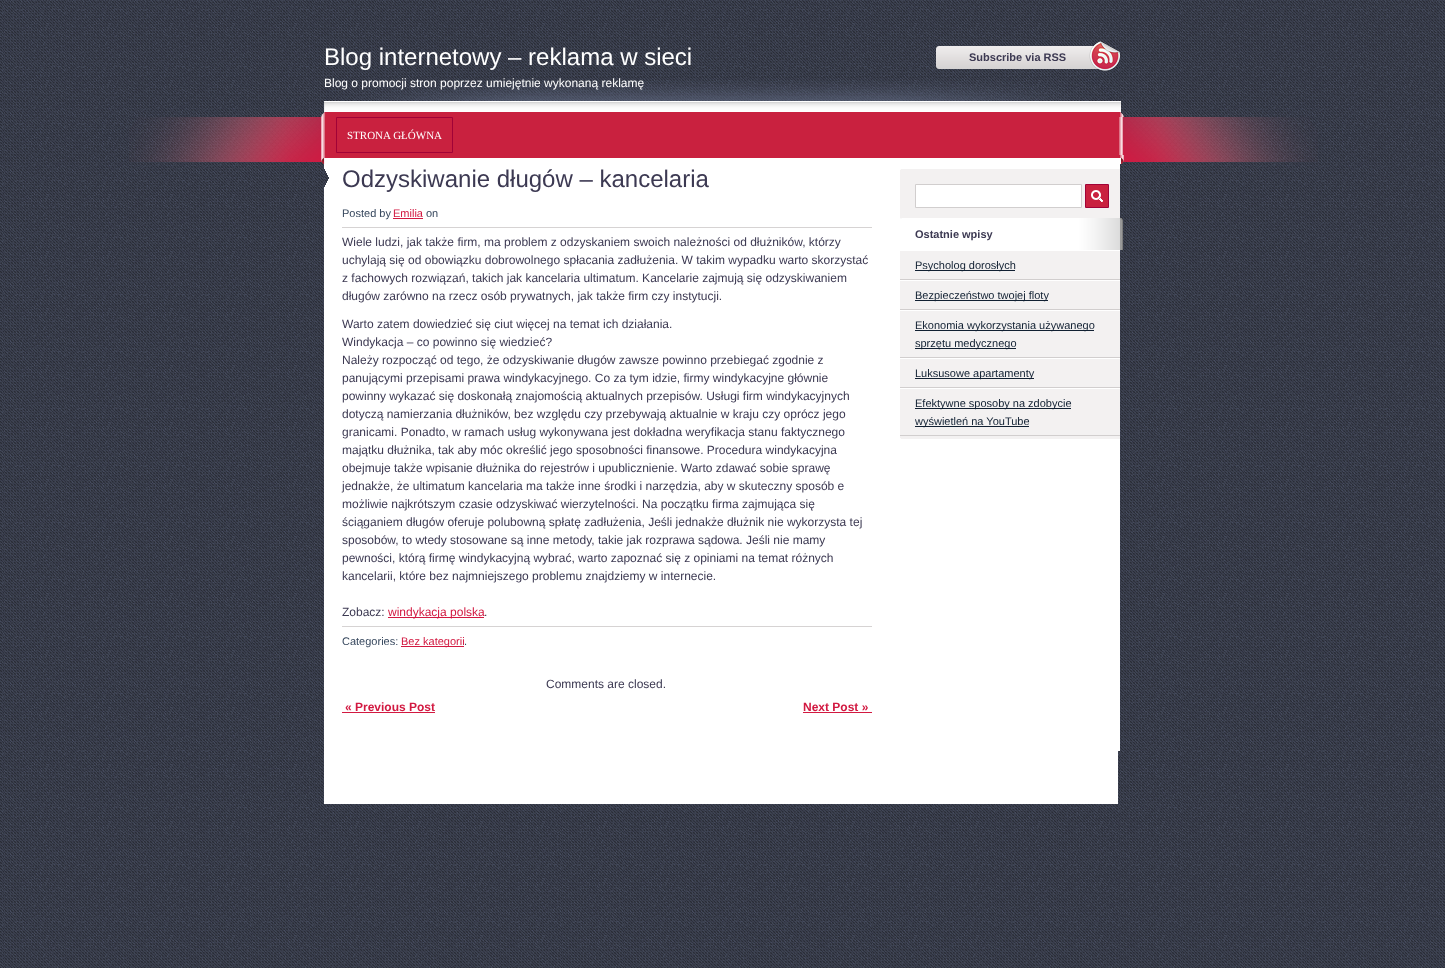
<svg xmlns="http://www.w3.org/2000/svg" width="1445" height="968">
<style>
.a{font:24px Liberation Sans;fill:#fff}
.b{font:12px Liberation Sans;fill:#fff}
.c{font:bold 11px Liberation Sans;fill:#3c3952}
.d{font:11px Liberation Serif;fill:#fff}
.e{font:24px Liberation Sans;fill:#3c3952}
.f{font:11px Liberation Sans;fill:#36475d}
.g{font:11px Liberation Sans;fill:#d21941}
.h{font:12px Liberation Sans;fill:#3c3952}
.i{font:12px Liberation Sans;fill:#d21941}
.j{font:bold 12px Liberation Sans;fill:#d21941}
.k{font:11px Liberation Sans;fill:#112032}
</style>
<rect width="100%" height="100%" fill="#fff"/>
<image href="1.png" x="0" y="0" width="1445" height="968"/>
<image href="2.png" x="936" y="41" width="185" height="30"/>
<image href="3.png" x="129" y="117" width="1189" height="45"/>
<image href="4.png" x="321" y="79" width="803" height="38"/>
<image href="5.png" x="321" y="117" width="802" height="38"/>
<path fill="none" stroke="#a10237" d="M336.5 117.5h116v35H336.5z"/>
<image href="6.png" x="321" y="155" width="803" height="9"/>
<path fill="#fff" d="M324 164h794v640H324z"/>
<path fill="#fff" d="M1118 164h2v587H1118z"/>
<image href="7.png" x="324" y="169" width="5" height="18"/>
<path fill="#d21941" d="M393 218h30v1H393z"/>
<path fill="#d6d3d3" d="M342 227h530v1H342z"/>
<path fill="#d21941" d="M388 617h96v1H388z"/>
<path fill="#d6d3d3" d="M342 626h530v1H342z"/>
<path fill="#d21941" d="M401 646h63v1H401z"/>
<path fill="#d21941" d="M342 712h93v1H342z"/>
<path fill="#d21941" d="M803 712h69v1H803z"/>
<path fill="#f3f1f1" d="M900 169h220v270H900z"/>
<path fill="#fcfbfb" d="M900 169h1v1H900z"/>
<path fill="#fff" stroke="#d1cece" d="M915.5 184.5h166v23H915.5z"/>
<path fill="#c9213f" d="M1086 185h22v22H1086z"/>
<image href="8.png" x="1091" y="190" width="12" height="12"/>
<path fill="none" stroke="#a10237" d="M1085.5 184.5h23v23H1085.5z"/>
<image href="9.png" x="900" y="218" width="223" height="32"/>
<path fill="#fff" d="M900 250h220v1H900z"/>
<path fill="#d1cece" d="M900 279h220v1H900z"/>
<path fill="#112032" d="M915 270h100v1H915z"/>
<path fill="#fff" d="M900 280h220v1H900z"/>
<path fill="#d1cece" d="M900 309h220v1H900z"/>
<path fill="#112032" d="M915 300h133v1H915z"/>
<path fill="#fff" d="M900 310h220v1H900z"/>
<path fill="#d1cece" d="M900 357h220v1H900z"/>
<path fill="#112032" d="M915 330h179v1H915z"/>
<path fill="#112032" d="M915 348h101v1H915z"/>
<path fill="#fff" d="M900 358h220v1H900z"/>
<path fill="#d1cece" d="M900 387h220v1H900z"/>
<path fill="#112032" d="M915 378h119v1H915z"/>
<path fill="#fff" d="M900 388h220v1H900z"/>
<path fill="#d1cece" d="M900 435h220v1H900z"/>
<path fill="#112032" d="M915 408h156v1H915z"/>
<path fill="#112032" d="M915 426h114v1H915z"/>
<path fill="#fcfbfb" d="M900 438h1v1H900z"/>
<text class="a" x="324" y="65">Blog internetowy – reklama w sieci</text>
<text class="b" x="324" y="87">Blog o promocji stron poprzez umiejętnie wykonaną reklamę</text>
<text class="c" x="969" y="61">Subscribe via RSS</text>
<text class="d" x="347" y="139">STRONA GŁÓWNA</text>
<text class="e" x="342" y="187">Odzyskiwanie długów – kancelaria</text>
<text class="f" x="342" y="217">Posted by</text>
<text class="g" x="393" y="217">Emilia</text>
<text class="f" x="426" y="217">on</text>
<text class="h" x="342" y="246">Wiele ludzi, jak także firm, ma problem z odzyskaniem swoich należności od dłużników, którzy</text>
<text class="h" x="342" y="264">uchylają się od obowiązku dobrowolnego spłacania zadłużenia. W takim wypadku warto skorzystać</text>
<text class="h" x="342" y="282">z fachowych rozwiązań, takich jak kancelaria ultimatum. Kancelarie zajmują się odzyskiwaniem</text>
<text class="h" x="342" y="300">długów zarówno na rzecz osób prywatnych, jak także firm czy instytucji.</text>
<text class="h" x="342" y="328">Warto zatem dowiedzieć się ciut więcej na temat ich działania.</text>
<text class="h" x="342" y="346">Windykacja – co powinno się wiedzieć?</text>
<text class="h" x="342" y="364">Należy rozpocząć od tego, że odzyskiwanie długów zawsze powinno przebiegać zgodnie z</text>
<text class="h" x="342" y="382">panującymi przepisami prawa windykacyjnego. Co za tym idzie, firmy windykacyjne głównie</text>
<text class="h" x="342" y="400">powinny wykazać się doskonałą znajomością aktualnych przepisów. Usługi firm windykacyjnych</text>
<text class="h" x="342" y="418">dotyczą namierzania dłużników, bez względu czy przebywają aktualnie w kraju czy oprócz jego</text>
<text class="h" x="342" y="436">granicami. Ponadto, w ramach usług wykonywana jest dokładna weryfikacja stanu faktycznego</text>
<text class="h" x="342" y="454">majątku dłużnika, tak aby móc określić jego sposobności finansowe. Procedura windykacyjna</text>
<text class="h" x="342" y="472">obejmuje także wpisanie dłużnika do rejestrów i upublicznienie. Warto zdawać sobie sprawę</text>
<text class="h" x="342" y="490">jednakże, że ultimatum kancelaria ma także inne środki i narzędzia, aby w skuteczny sposób e</text>
<text class="h" x="342" y="508">możliwie najkrótszym czasie odzyskiwać wierzytelności. Na początku firma zajmująca się</text>
<text class="h" x="342" y="526">ściąganiem długów oferuje polubowną spłatę zadłużenia, Jeśli jednakże dłużnik nie wykorzysta tej</text>
<text class="h" x="342" y="544">sposobów, to wtedy stosowane są inne metody, takie jak rozprawa sądowa. Jeśli nie mamy</text>
<text class="h" x="342" y="562">pewności, którą firmę windykacyjną wybrać, warto zapoznać się z opiniami na temat różnych</text>
<text class="h" x="342" y="580">kancelarii, które bez najmniejszego problemu znajdziemy w internecie.</text>
<text class="h" x="342" y="616">Zobacz:</text>
<text class="i" x="388" y="616">windykacja polska</text>
<text class="h" x="484" y="616">.</text>
<text class="f" x="342" y="645">Categories:</text>
<text class="g" x="401" y="645">Bez kategorii</text>
<text class="f" x="464" y="645">.</text>
<text class="h" x="546" y="688">Comments are closed.</text>
<text class="j" x="345" y="711">« Previous Post</text>
<text class="j" x="803" y="711">Next Post »</text>
<text class="c" x="915" y="238">Ostatnie wpisy</text>
<text class="k" x="915" y="269">Psycholog dorosłych</text>
<text class="k" x="915" y="299">Bezpieczeństwo twojej floty</text>
<text class="k" x="915" y="329">Ekonomia wykorzystania używanego</text>
<text class="k" x="915" y="347">sprzętu medycznego</text>
<text class="k" x="915" y="377">Luksusowe apartamenty</text>
<text class="k" x="915" y="407">Efektywne sposoby na zdobycie</text>
<text class="k" x="915" y="425">wyświetleń na YouTube</text>
</svg>
